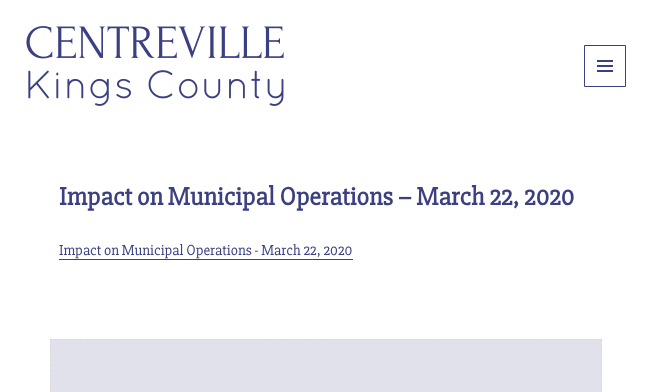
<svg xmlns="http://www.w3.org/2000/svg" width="652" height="392">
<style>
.a{font:bold 26px 'Slabo 27px';fill:#3a4081}
.b{font:15px 'Slabo 27px';fill:#3a4081}
</style>
<rect width="100%" height="100%" fill="#fff"/>
<image href="1.png" x="26" y="26" width="258" height="80"/>
<path fill="none" stroke="#3a4081" d="M584.5 45.5h41v41H584.5z"/>
<image href="2.png" x="597" y="60" width="16" height="12"/>
<path fill="#3a4081" d="M59 259h294v1H59z"/>
<path fill="#e0e1eb" d="M50 339h552v53H50z"/>
<path fill="none" stroke="#ddd9d6" stroke-dasharray="3 1.99" d="M50 339.5h552"/>
<path fill="none" stroke="#ddd9d6" stroke-dasharray="3 1.99" d="M601.5 339v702"/>
<path fill="none" stroke="#ddd9d6" stroke-dasharray="3 1.99" d="M50.5 339v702"/>
<text class="a" x="59" y="205">Impact on Municipal Operations – March 22, 2020</text>
<text class="b" x="59" y="255">Impact on Municipal Operations - March 22, 2020</text>
</svg>
